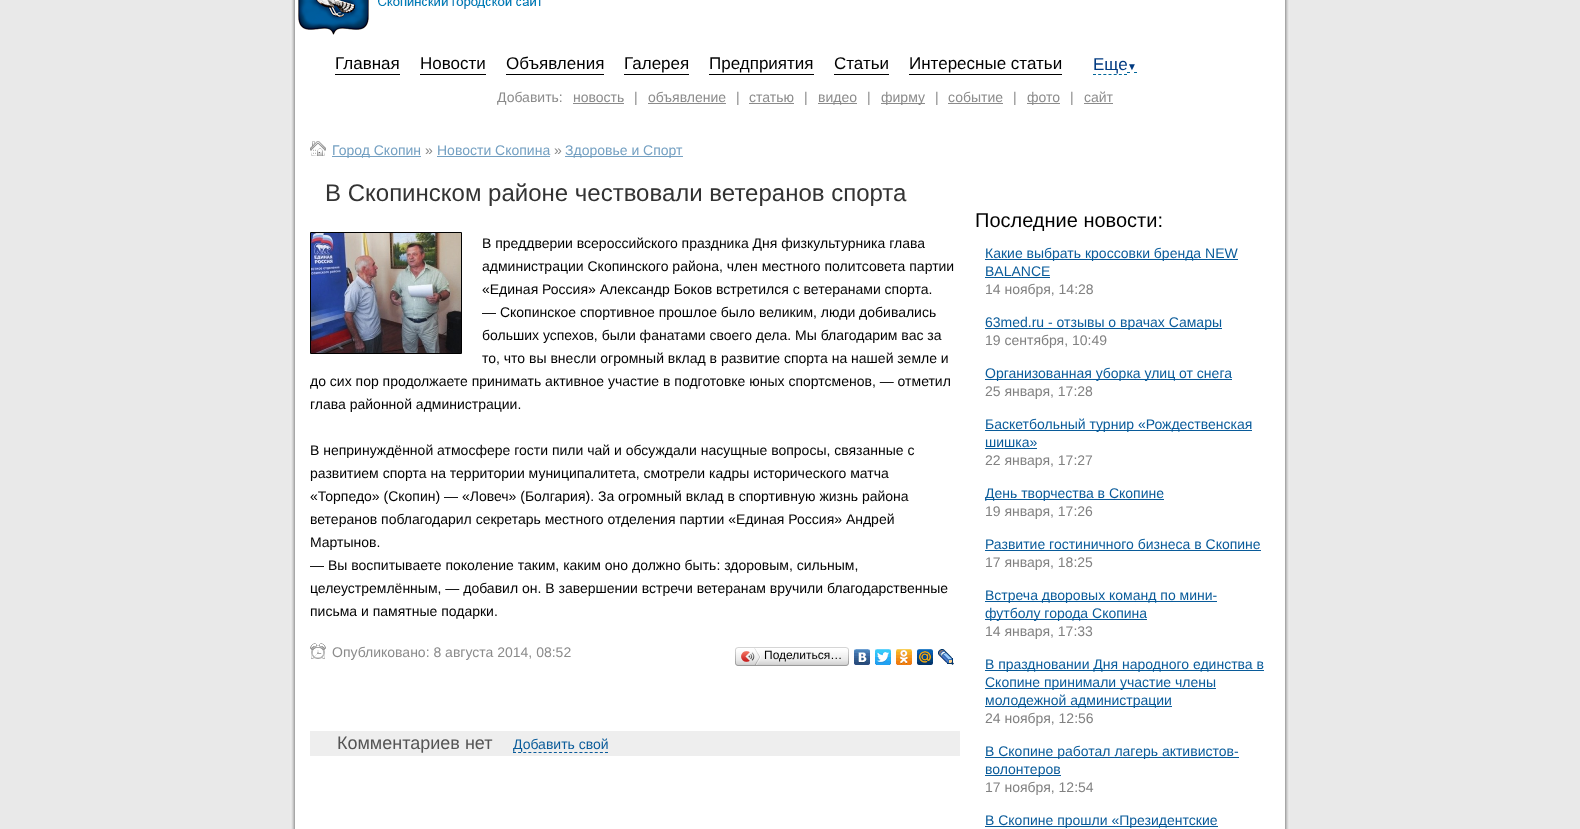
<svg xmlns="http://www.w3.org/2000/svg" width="1580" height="829">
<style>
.a{font:17px Liberation Sans;fill:#000}
.b{font:17px Liberation Sans;fill:#003a81}
.c{font:10px Liberation Sans;fill:#003a81}
.d{font:14px Liberation Sans;fill:#8b8b8b}
.e{font:14px Liberation Sans;fill:#74a0c2}
.f{font:24px Liberation Sans;fill:#333}
.g{font:14px Liberation Sans;fill:#000}
.h{font:12px Liberation Sans;fill:#000}
.i{font:18px Liberation Sans;fill:#555}
.j{font:14px Liberation Sans;fill:#095b9a}
.k{font:20px Liberation Sans;fill:#000}
.l{font:14px Liberation Sans;fill:#818181}
</style>
<rect width="100%" height="100%" fill="#e9e9e9"/>
<image href="1.png" x="290" y="0" width="1000" height="829"/>
<image href="2.png" x="298" y="0" width="243" height="35"/>
<path fill="#000" d="M335 74h65v1H335z"/>
<path fill="#000" d="M420 74h66v1H420z"/>
<path fill="#000" d="M506 74h98v1H506z"/>
<path fill="#000" d="M624 74h65v1H624z"/>
<path fill="#000" d="M709 74h105v1H709z"/>
<path fill="#000" d="M834 74h55v1H834z"/>
<path fill="#000" d="M909 74h153v1H909z"/>
<path fill="none" stroke="#069" stroke-dasharray="3 2.17" d="M1093 74.5h34"/>
<path fill="none" stroke="#069" d="M1127 72.5h3m4 0h3"/>
<path fill="#8b8b8b" d="M573 103h51v1H573z"/>
<path fill="#8b8b8b" d="M648 103h78v1H648z"/>
<path fill="#8b8b8b" d="M749 103h45v1H749z"/>
<path fill="#8b8b8b" d="M818 103h39v1H818z"/>
<path fill="#8b8b8b" d="M881 103h44v1H881z"/>
<path fill="#8b8b8b" d="M948 103h55v1H948z"/>
<path fill="#8b8b8b" d="M1027 103h33v1H1027z"/>
<path fill="#8b8b8b" d="M1084 103h29v1H1084z"/>
<image href="3.png" x="310" y="141" width="16" height="15"/>
<path fill="#74a0c2" d="M332 156h89v1H332z"/>
<path fill="#74a0c2" d="M437 156h113v1H437z"/>
<path fill="#74a0c2" d="M565 156h118v1H565z"/>
<path fill="none" stroke="#000" d="M310.5 232.5h151v121H310.5z"/>
<image href="4.png" x="311" y="233" width="150" height="120"/>
<image href="5.png" x="310" y="643" width="16" height="16"/>
<image href="6.png" x="738" y="647" width="108" height="19"/>
<image href="7.png" x="735" y="647" width="3" height="19"/>
<image href="8.png" x="741" y="648" width="20" height="17"/>
<image href="9.png" x="846" y="647" width="3" height="19"/>
<image href="10.png" x="854" y="649" width="16" height="16"/>
<image href="11.png" x="875" y="649" width="16" height="16"/>
<image href="12.png" x="896" y="649" width="16" height="16"/>
<image href="13.png" x="917" y="649" width="16" height="16"/>
<image href="14.png" x="938" y="649" width="16" height="16"/>
<path fill="#eee" d="M310 731h650v25H310z"/>
<path fill="none" stroke="#095b9a" stroke-dasharray="3 2.11" d="M513 752.5h95"/>
<path fill="#095b9a" d="M985 259h253v1H985z"/>
<path fill="#095b9a" d="M985 277h65v1H985z"/>
<path fill="#095b9a" d="M985 328h237v1H985z"/>
<path fill="#095b9a" d="M985 379h247v1H985z"/>
<path fill="#095b9a" d="M985 430h267v1H985z"/>
<path fill="#095b9a" d="M985 448h52v1H985z"/>
<path fill="#095b9a" d="M985 499h179v1H985z"/>
<path fill="#095b9a" d="M985 550h276v1H985z"/>
<path fill="#095b9a" d="M985 601h232v1H985z"/>
<path fill="#095b9a" d="M985 619h162v1H985z"/>
<path fill="#095b9a" d="M985 670h279v1H985z"/>
<path fill="#095b9a" d="M985 688h231v1H985z"/>
<path fill="#095b9a" d="M985 706h187v1H985z"/>
<path fill="#095b9a" d="M985 757h254v1H985z"/>
<path fill="#095b9a" d="M985 775h76v1H985z"/>
<path fill="#095b9a" d="M985 826h233v1H985z"/>
<text class="a" x="335" y="69">Главная</text>
<text class="a" x="420" y="69">Новости</text>
<text class="a" x="506" y="69">Объявления</text>
<text class="a" x="624" y="69">Галерея</text>
<text class="a" x="709" y="69">Предприятия</text>
<text class="a" x="834" y="69">Статьи</text>
<text class="a" x="909" y="69">Интересные статьи</text>
<text class="b" x="1093" y="70">Еще</text>
<text class="c" x="1127" y="70">▼</text>
<text class="d" x="497" y="102">Добавить:</text>
<text class="d" x="573" y="102">новость</text>
<text class="d" x="634" y="102">|</text>
<text class="d" x="648" y="102">объявление</text>
<text class="d" x="736" y="102">|</text>
<text class="d" x="749" y="102">статью</text>
<text class="d" x="804" y="102">|</text>
<text class="d" x="818" y="102">видео</text>
<text class="d" x="867" y="102">|</text>
<text class="d" x="881" y="102">фирму</text>
<text class="d" x="935" y="102">|</text>
<text class="d" x="948" y="102">событие</text>
<text class="d" x="1013" y="102">|</text>
<text class="d" x="1027" y="102">фото</text>
<text class="d" x="1070" y="102">|</text>
<text class="d" x="1084" y="102">сайт</text>
<text class="e" x="332" y="155">Город Скопин</text>
<text class="d" x="425" y="155">»</text>
<text class="e" x="437" y="155">Новости Скопина</text>
<text class="d" x="554" y="155">»</text>
<text class="e" x="565" y="155">Здоровье и Спорт</text>
<text class="f" x="325" y="201">В Скопинском районе чествовали ветеранов спорта</text>
<text class="g" x="482" y="248">В преддверии всероссийского праздника Дня физкультурника глава</text>
<text class="g" x="482" y="271">администрации Скопинского района, член местного политсовета партии</text>
<text class="g" x="482" y="294">«Единая Россия» Александр Боков встретился с ветеранами спорта.</text>
<text class="g" x="482" y="317">— Скопинское спортивное прошлое было великим, люди добивались</text>
<text class="g" x="482" y="340">больших успехов, были фанатами своего дела. Мы благодарим вас за</text>
<text class="g" x="482" y="363">то, что вы внесли огромный вклад в развитие спорта на нашей земле и</text>
<text class="g" x="310" y="386">до сих пор продолжаете принимать активное участие в подготовке юных спортсменов, — отметил</text>
<text class="g" x="310" y="409">глава районной администрации.</text>
<text class="g" x="310" y="455">В непринуждённой атмосфере гости пили чай и обсуждали насущные вопросы, связанные с</text>
<text class="g" x="310" y="478">развитием спорта на территории муниципалитета, смотрели кадры исторического матча</text>
<text class="g" x="310" y="501">«Торпедо» (Скопин) — «Ловеч» (Болгария). За огромный вклад в спортивную жизнь района</text>
<text class="g" x="310" y="524">ветеранов поблагодарил секретарь местного отделения партии «Единая Россия» Андрей</text>
<text class="g" x="310" y="547">Мартынов.</text>
<text class="g" x="310" y="570">— Вы воспитываете поколение таким, каким оно должно быть: здоровым, сильным,</text>
<text class="g" x="310" y="593">целеустремлённым, — добавил он. В завершении встречи ветеранам вручили благодарственные</text>
<text class="g" x="310" y="616">письма и памятные подарки.</text>
<text class="d" x="332" y="657">Опубликовано: 8 августа 2014, 08:52</text>
<text class="h" x="764" y="659">Поделиться…</text>
<text class="i" x="337" y="749">Комментариев нет</text>
<text class="j" x="513" y="749">Добавить свой</text>
<text class="k" x="975" y="227">Последние новости:</text>
<text class="j" x="985" y="258">Какие выбрать кроссовки бренда NEW</text>
<text class="j" x="985" y="276">BALANCE</text>
<text class="l" x="985" y="294">14 ноября, 14:28</text>
<text class="j" x="985" y="327">63med.ru - отзывы о врачах Самары</text>
<text class="l" x="985" y="345">19 сентября, 10:49</text>
<text class="j" x="985" y="378">Организованная уборка улиц от снега</text>
<text class="l" x="985" y="396">25 января, 17:28</text>
<text class="j" x="985" y="429">Баскетбольный турнир «Рождественская</text>
<text class="j" x="985" y="447">шишка»</text>
<text class="l" x="985" y="465">22 января, 17:27</text>
<text class="j" x="985" y="498">День творчества в Скопине</text>
<text class="l" x="985" y="516">19 января, 17:26</text>
<text class="j" x="985" y="549">Развитие гостиничного бизнеса в Скопине</text>
<text class="l" x="985" y="567">17 января, 18:25</text>
<text class="j" x="985" y="600">Встреча дворовых команд по мини-</text>
<text class="j" x="985" y="618">футболу города Скопина</text>
<text class="l" x="985" y="636">14 января, 17:33</text>
<text class="j" x="985" y="669">В праздновании Дня народного единства в</text>
<text class="j" x="985" y="687">Скопине принимали участие члены</text>
<text class="j" x="985" y="705">молодежной администрации</text>
<text class="l" x="985" y="723">24 ноября, 12:56</text>
<text class="j" x="985" y="756">В Скопине работал лагерь активистов-</text>
<text class="j" x="985" y="774">волонтеров</text>
<text class="l" x="985" y="792">17 ноября, 12:54</text>
<text class="j" x="985" y="825">В Скопине прошли «Президентские</text>
</svg>
